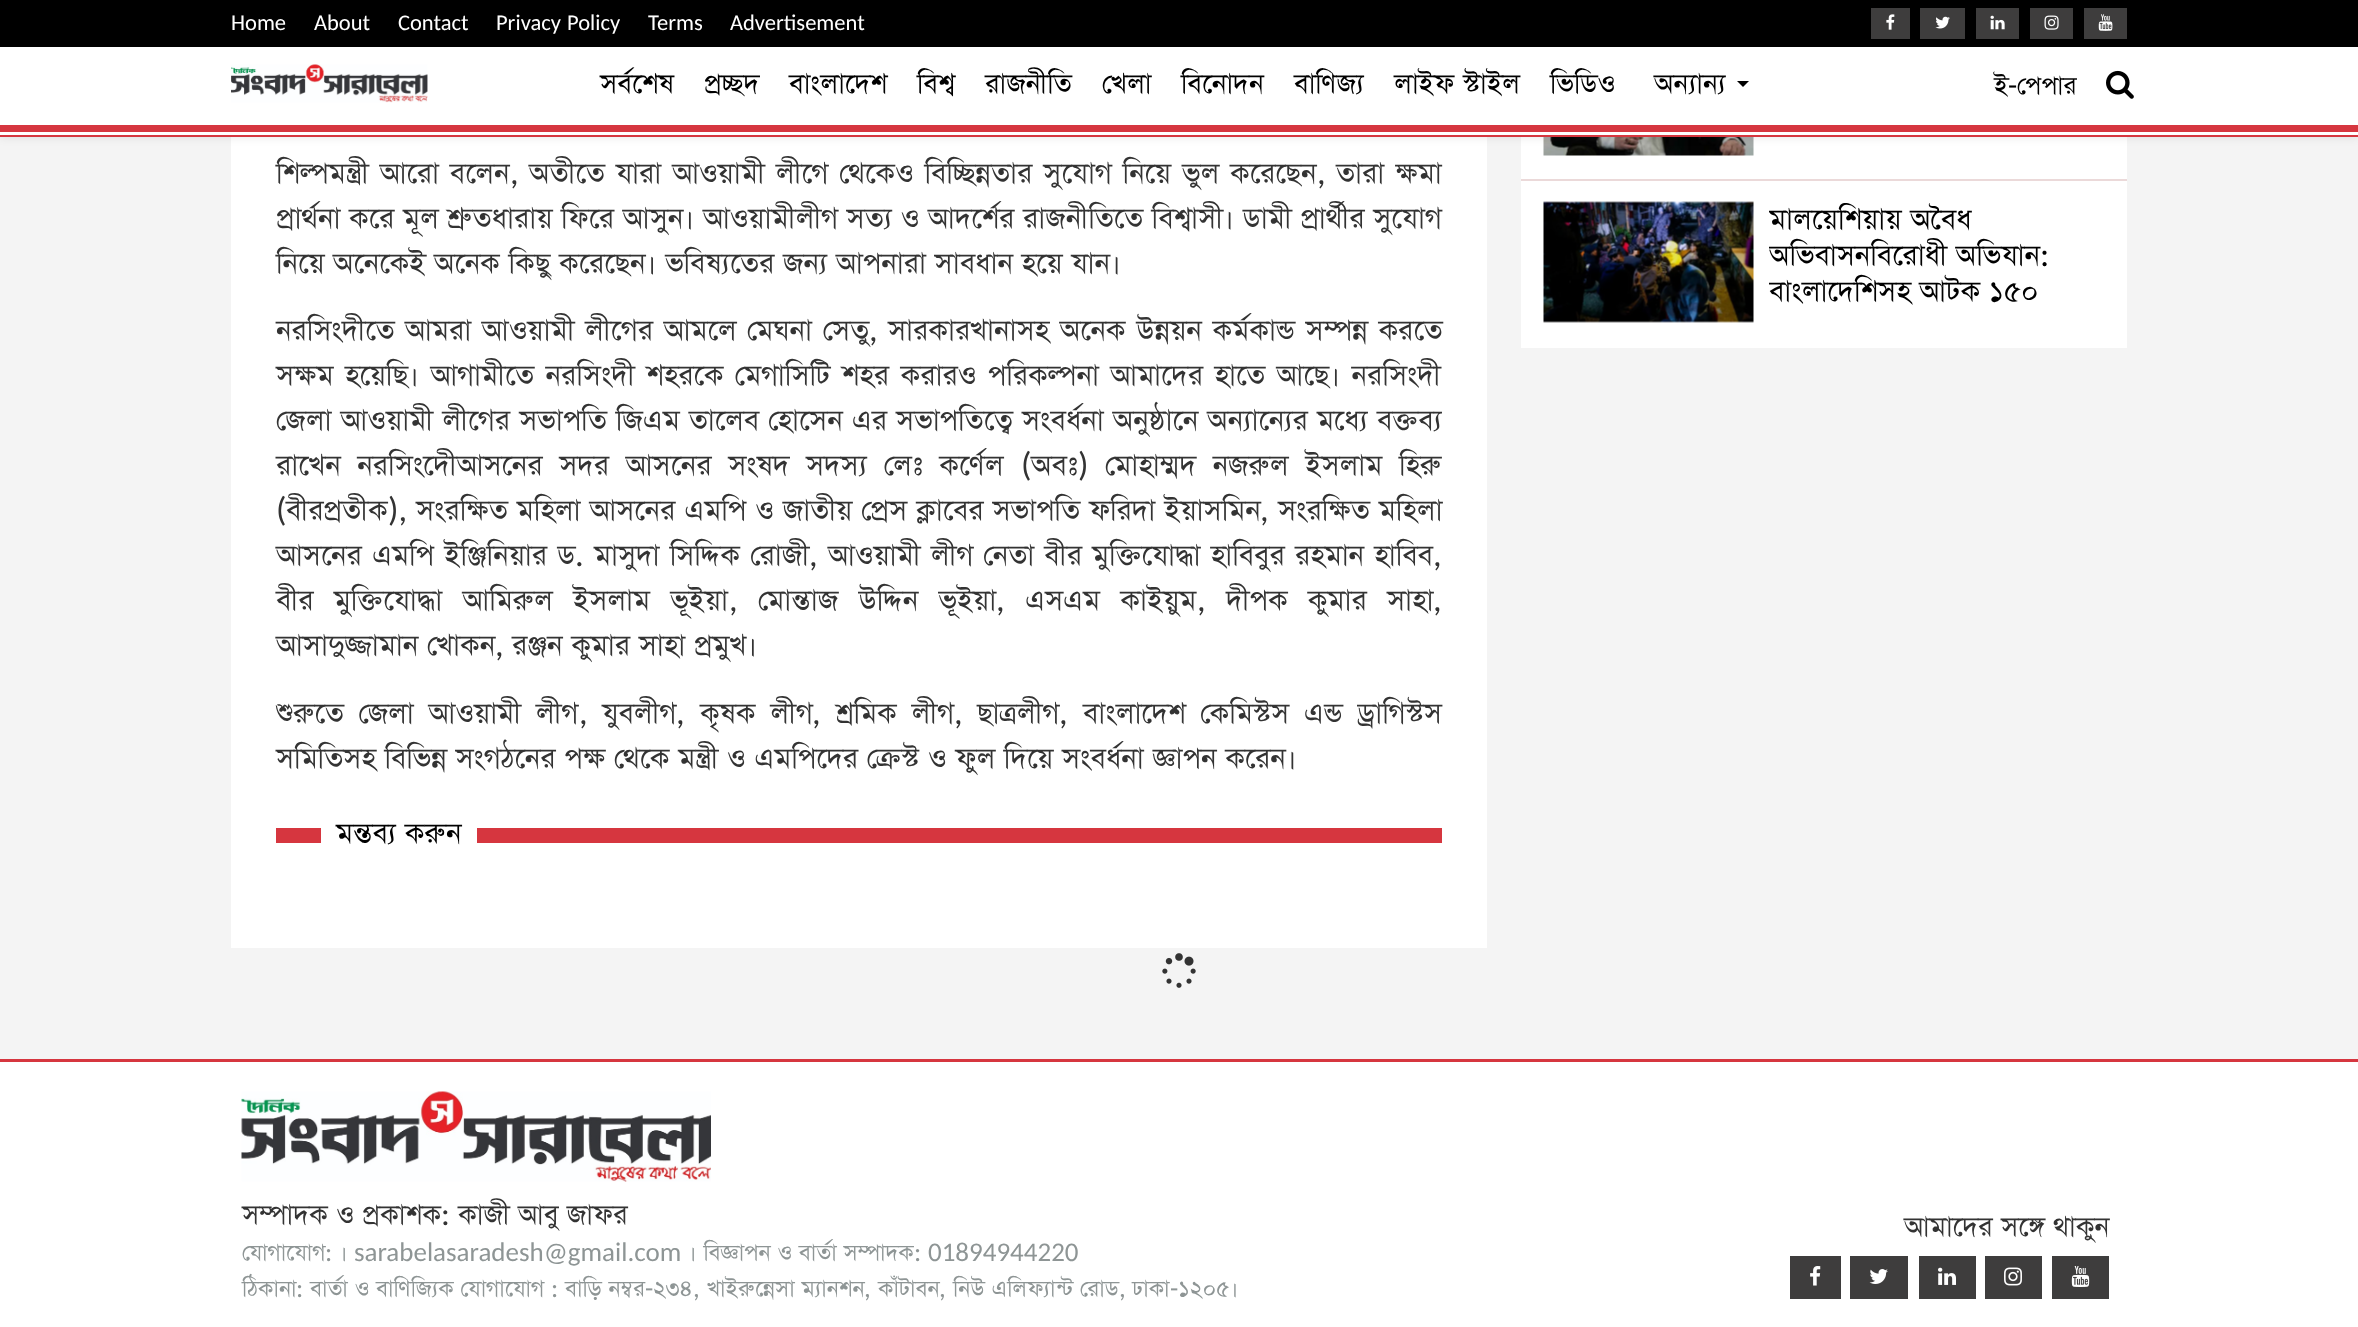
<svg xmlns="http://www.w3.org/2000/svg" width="2358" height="1327">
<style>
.a{font:22.5px Carlito;fill:#fff}
.b{font:33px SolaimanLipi;fill:#000}
.c{font:30px SolaimanLipi;fill:#000}
.d{font:30px Carlito;fill:#000}
.e{font:34.5px SolaimanLipi;fill:#333}
.f{font:34.5px Carlito;fill:#333}
.g{font:34.5px SolaimanLipi;fill:#000}
.h{font:34.5px Carlito;fill:#000}
.i{font:33px SolaimanLipi;fill:#333}
.j{font:33px Carlito;fill:#333}
.k{font:27px SolaimanLipi;fill:#8e9595}
.l{font:27px Carlito;fill:#8e9595}
</style>
<defs>
<clipPath id="clip1"><path d="M1769 203h336v120H1769z"/></clipPath>
</defs>
<rect width="100%" height="100%" fill="#f4f4f4"/>
<path fill="#fff" d="M231 137h1256v811H231z"/>
<path fill="#fff" d="M1521 137h606v211H1521z"/>
<image href="8.png" x="1543" y="137" width="211" height="19"/>
<path fill="#00000014" filter="blur(4px)" d="M0 2h2358v136H0z"/>
<path fill="#fff" d="M0 47h2358v88H0z"/>
<path fill="#d6363f" d="M0 135h2358v2H0z"/>
<path fill="#000" d="M0 0h2358v47H0z"/>
<path fill="#3e3d3d" d="M1871 8h39v31H1871z"/>
<image href="1.png" x="1886" y="14" width="9" height="16"/>
<path fill="#3e3d3d" d="M1920 8h45v31H1920z"/>
<image href="2.png" x="1935" y="16" width="15" height="13"/>
<path fill="#3e3d3d" d="M1976 8h43v31H1976z"/>
<image href="3.png" x="1990" y="15" width="15" height="15"/>
<path fill="#3e3d3d" d="M2030 8h43v31H2030z"/>
<image href="4.png" x="2044" y="15" width="15" height="15"/>
<path fill="#3e3d3d" d="M2084 8h43v31H2084z"/>
<image href="5.png" x="2098" y="14" width="15" height="17"/>
<image href="6.png" x="231" y="64" width="197" height="39"/>
<path fill="#000" d="M1737 81h12l-6 6z"/>
<image href="7.png" x="2106" y="70" width="28" height="29"/>
<path fill="#d6363f" d="M0 125h2358v7H0z"/>
<path fill="#d6363f" d="M276 828h1166v15H276z"/>
<path fill="#fff" d="M321 828h156v15H321z"/>
<path fill="#ebd9d9" d="M1521 179h606v2H1521z"/>
<image href="9.png" x="1543" y="201" width="211" height="122"/>
<image href="10.png" x="1162" y="953" width="34" height="35"/>
<path fill="#fff" d="M0 1062h2358v265H0z"/>
<path fill="#d6363f" d="M0 1059h2358v3H0z"/>
<image href="11.png" x="241" y="1091" width="470" height="91"/>
<path fill="#3e3d3d" d="M1790 1256h51v43H1790z"/>
<image href="12.png" x="1810" y="1266" width="11" height="20"/>
<path fill="#3e3d3d" d="M1850 1256h58v43H1850z"/>
<image href="13.png" x="1869" y="1269" width="19" height="15"/>
<path fill="#3e3d3d" d="M1919 1256h57v43H1919z"/>
<image href="14.png" x="1938" y="1267" width="18" height="18"/>
<path fill="#3e3d3d" d="M1985 1256h57v43H1985z"/>
<image href="15.png" x="2004" y="1267" width="18" height="19"/>
<path fill="#3e3d3d" d="M2052 1256h57v43H2052z"/>
<image href="16.png" x="2071" y="1266" width="19" height="21"/>
<text class="a" x="231" y="30">Home</text>
<text class="a" x="314" y="30">About</text>
<text class="a" x="398" y="30">Contact</text>
<text class="a" x="496" y="30" word-spacing="1">Privacy Policy</text>
<text class="a" x="648" y="30">Terms</text>
<text class="a" x="730" y="30">Advertisement</text>
<text class="b" x="600" y="94">সর্বশেষ</text>
<text class="b" x="704" y="94">প্রচ্ছদ</text>
<text class="b" x="789" y="94">বাংলাদেশ</text>
<text class="b" x="917" y="94">বিশ্ব</text>
<text class="b" x="985" y="94">রাজনীতি</text>
<text class="b" x="1102" y="94">খেলা</text>
<text class="b" x="1181" y="94">বিনোদন</text>
<text class="b" x="1294" y="94">বাণিজ্য</text>
<text class="b" x="1394" y="94">লাইফ স্টাইল</text>
<text class="b" x="1550" y="94">ভিডিও</text>
<text class="b" x="1654" y="94">অন্যান্য</text>
<text class="c" x="1994" y="95">ই</text>
<text class="d" x="2008" y="95">-</text>
<text class="c" x="2017" y="95">পেপার</text>
<text class="e" x="276" y="184" word-spacing="2.25">শিল্পমন্ত্রী আরো বলেন</text>
<text class="f" x="510" y="184">,</text>
<text class="e" x="529" y="184" word-spacing="2.25">অতীতে যারা আওয়ামী লীগে থেকেও বিচ্ছিন্নতার সুযোগ নিয়ে ভুল করেছেন</text>
<text class="f" x="1317" y="184">,</text>
<text class="e" x="1336" y="184" word-spacing="2.25">তারা ক্ষমা</text>
<text class="e" x="276" y="229">প্রার্থনা করে মূল শ্রুতধারায় ফিরে আসুন। আওয়ামীলীগ সত্য ও আদর্শের রাজনীতিতে বিশ্বাসী। ডামী প্রার্থীর সুযোগ</text>
<text class="e" x="276" y="274">নিয়ে অনেকেই অনেক কিছু করেছেন। ভবিষ্যতের জন্য আপনারা সাবধান হয়ে যান।</text>
<text class="e" x="276" y="341" word-spacing="2">নরসিংদীতে আমরা আওয়ামী লীগের আমলে মেঘনা সেতু</text>
<text class="f" x="869" y="341">,</text>
<text class="e" x="888" y="341" word-spacing="2">সারকারখানাসহ অনেক উন্নয়ন কর্মকান্ড সম্পন্ন করতে</text>
<text class="e" x="276" y="386" word-spacing="2.75">সক্ষম হয়েছি। আগামীতে নরসিংদী শহরকে মেগাসিটি শহর করারও পরিকল্পনা আমাদের হাতে আছে। নরসিংদী</text>
<text class="e" x="276" y="431" word-spacing="0.4">জেলা আওয়ামী লীগের সভাপতি জিএম তালেব হোসেন এর সভাপতিত্বে সংবর্ধনা অনুষ্ঠানে অন্যান্যের মধ্যে বক্তব্য</text>
<text class="e" x="276" y="476" word-spacing="8">রাখেন নরসিংদীেআসনের সদর আসনের সংষদ সদস্য লেঃ কর্ণেল</text>
<text class="f" x="1021" y="476">(</text>
<text class="e" x="1031" y="476">অবঃ</text>
<text class="f" x="1078" y="476">)</text>
<text class="e" x="1105" y="476" word-spacing="8">মোহাম্মদ নজরুল ইসলাম হিরু</text>
<text class="e" x="416" y="521" word-spacing="0.25">সংরক্ষিত মহিলা আসনের এমপি ও জাতীয় প্রেস ক্লাবের সভাপতি ফরিদা ইয়াসমিন</text>
<text class="e" x="1278" y="521" word-spacing="0.25">সংরক্ষিত মহিলা</text>
<text class="f" x="276" y="521">(</text>
<text class="e" x="286" y="521">বীরপ্রতীক</text>
<text class="f" x="388" y="521">),</text>
<text class="f" x="1260" y="521">,</text>
<text class="e" x="276" y="566" word-spacing="1.5">আসনের এমপি ইঞ্জিনিয়ার ড</text>
<text class="f" x="575" y="566">.</text>
<text class="e" x="594" y="566" word-spacing="1.5">মাসুদা সিদ্দিক রোজী</text>
<text class="f" x="809" y="566">,</text>
<text class="e" x="828" y="566" word-spacing="1.5">আওয়ামী লীগ নেতা বীর মুক্তিযোদ্ধা হাবিবুর রহমান হাবিব</text>
<text class="f" x="1433" y="566">,</text>
<text class="e" x="276" y="611" word-spacing="11.5">বীর মুক্তিযোদ্ধা আমিরুল ইসলাম ভূইয়া</text>
<text class="f" x="729" y="611">,</text>
<text class="e" x="758" y="611" word-spacing="11.5">মোন্তাজ উদ্দিন ভূইয়া</text>
<text class="f" x="996" y="611">,</text>
<text class="e" x="1025" y="611" word-spacing="11.5">এসএম কাইয়ুম</text>
<text class="f" x="1197" y="611">,</text>
<text class="e" x="1226" y="611" word-spacing="11.5">দীপক কুমার সাহা</text>
<text class="f" x="1433" y="611">,</text>
<text class="e" x="276" y="656">আসাদুজ্জামান খোকন</text>
<text class="f" x="495" y="656">,</text>
<text class="e" x="512" y="656">রঞ্জন কুমার সাহা প্রমুখ।</text>
<text class="e" x="276" y="724" word-spacing="6">শুরুতে জেলা আওয়ামী লীগ</text>
<text class="f" x="579" y="724">,</text>
<text class="e" x="602" y="724">যুবলীগ</text>
<text class="f" x="676" y="724">,</text>
<text class="e" x="700" y="724" word-spacing="6">কৃষক লীগ</text>
<text class="f" x="812" y="724">,</text>
<text class="e" x="836" y="724" word-spacing="6">শ্রমিক লীগ</text>
<text class="f" x="954" y="724">,</text>
<text class="e" x="977" y="724">ছাত্রলীগ</text>
<text class="f" x="1059" y="724">,</text>
<text class="e" x="1083" y="724" word-spacing="6">বাংলাদেশ কেমিস্টস এন্ড ড্রাগিস্টস</text>
<text class="e" x="276" y="769">সমিতিসহ বিভিন্ন সংগঠনের পক্ষ থেকে মন্ত্রী ও এমপিদের ক্রেস্ট ও ফুল দিয়ে সংবর্ধনা জ্ঞাপন করেন।</text>
<text class="g" x="336" y="844">মন্তব্য করুন</text>
<g clip-path="url(#clip1)">
<text class="g" x="1769" y="230">মালয়েশিয়ায় অবৈধ</text>
<text class="g" x="1769" y="266">অভিবাসনবিরোধী অভিযান</text>
</g>
<text class="h" x="2040" y="266">:</text>
<g clip-path="url(#clip1)">
<text class="g" x="1769" y="302">বাংলাদেশিসহ আটক ১৫০</text>
</g>
<text class="i" x="242" y="1225">সম্পাদক ও প্রকাশক</text>
<text class="j" x="441" y="1225">:</text>
<text class="i" x="458" y="1225">কাজী আবু জাফর</text>
<text class="k" x="242" y="1261">যোগাযোগ</text>
<text class="l" x="325" y="1261">:</text>
<text class="k" x="339" y="1261">।</text>
<text class="l" x="354" y="1261">sarabelasaradesh@gmail.com</text>
<text class="k" x="688" y="1261">। বিজ্ঞাপন ও বার্তা সম্পাদক</text>
<text class="l" x="914" y="1261">:</text>
<text class="l" x="928" y="1261">01894944220</text>
<text class="k" x="242" y="1297">ঠিকানা</text>
<text class="l" x="296" y="1297">:</text>
<text class="k" x="310" y="1297">বার্তা ও বাণিজ্যিক যোগাযোগ</text>
<text class="l" x="551" y="1297">:</text>
<text class="k" x="565" y="1297">বাড়ি নম্বর</text>
<text class="l" x="645" y="1297">-</text>
<text class="k" x="653" y="1297">২৩৪</text>
<text class="k" x="707" y="1297">খাইরুন্নেসা ম্যানশন</text>
<text class="k" x="953" y="1297">নিউ এলিফ্যান্ট রোড</text>
<text class="k" x="1132" y="1297">ঢাকা</text>
<text class="l" x="1170" y="1297">-</text>
<text class="k" x="1178" y="1297">১২০৫।</text>
<text class="l" x="693" y="1297">,</text>
<text class="l" x="864" y="1297">,</text>
<text class="k" x="878" y="1297">কাঁটাবন</text>
<text class="l" x="939" y="1297">,</text>
<text class="l" x="1119" y="1297">,</text>
<text class="i" x="1904" y="1237">আমাদের সঙ্গে থাকুন</text>
</svg>
